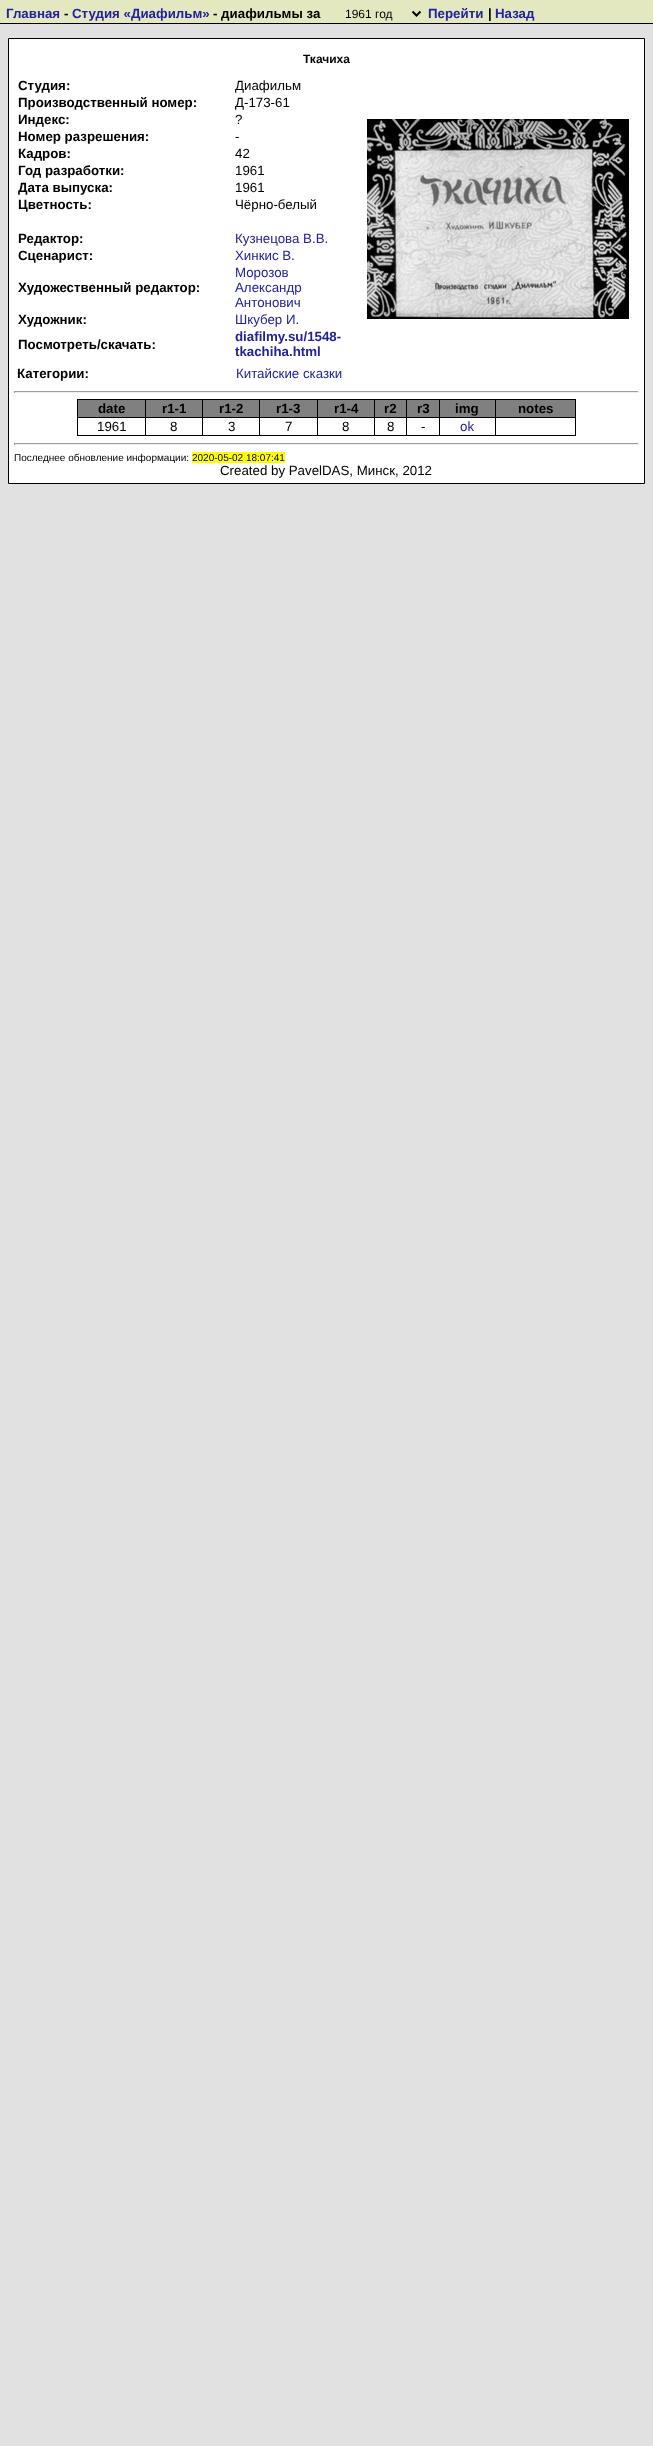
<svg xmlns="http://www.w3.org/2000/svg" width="653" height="2446">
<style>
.a{font:bold 13.3px Liberation Sans;fill:#22229c}
.b{font:bold 13.3px Liberation Sans;fill:#000}
.c{font:12px Liberation Sans;fill:#000}
.d{font:bold 12px Liberation Sans;fill:#000}
.e{font:13.3px Liberation Sans;fill:#000}
.f{font:13.3px Liberation Sans;fill:#22229c}
.g{font:10px Liberation Sans;fill:#000}
</style>
<rect width="100%" height="100%" fill="#e1e1e2"/>
<path fill="#e3e8c1" d="M0 0h653v23H0z"/>
<path fill="#000" d="M0 23h653v1H0z"/>
<path fill="none" stroke="#000" stroke-width="2" d="M412.5 11.5l4 4l4-4"/>
<path fill="#fff" stroke="#000" d="M8.5 38.5h636v445H8.5z"/>
<image href="1.png" x="362" y="119" width="271" height="200"/>
<path fill="#9f9f9f" d="M14 391h625v1H14z"/>
<path fill="#eee" d="M638 391h1v2H638z"/>
<path fill="#eee" d="M14 392h625v1H14z"/>
<path fill="#9f9f9f" d="M14 391h1v2H14z"/>
<path fill="#000" d="M77 399h499v1H77z"/>
<path fill="#000" d="M575 399h1v37H575z"/>
<path fill="#000" d="M77 435h499v1H77z"/>
<path fill="#000" d="M77 399h1v37H77z"/>
<path fill="#808080" d="M78 400h497v17H78z"/>
<path fill="#000" d="M495 417h81v1H495z"/>
<path fill="#000" d="M495 417h1v19H495z"/>
<path fill="#000" d="M439 417h57v1H439z"/>
<path fill="#000" d="M439 417h1v19H439z"/>
<path fill="#000" d="M406 417h34v1H406z"/>
<path fill="#000" d="M406 417h1v19H406z"/>
<path fill="#000" d="M374 417h33v1H374z"/>
<path fill="#000" d="M374 417h1v19H374z"/>
<path fill="#000" d="M317 417h58v1H317z"/>
<path fill="#000" d="M317 417h1v19H317z"/>
<path fill="#000" d="M259 417h59v1H259z"/>
<path fill="#000" d="M259 417h1v19H259z"/>
<path fill="#000" d="M202 417h58v1H202z"/>
<path fill="#000" d="M202 417h1v19H202z"/>
<path fill="#000" d="M145 417h58v1H145z"/>
<path fill="#000" d="M145 417h1v19H145z"/>
<path fill="#000" d="M77 417h69v1H77z"/>
<path fill="#000" d="M145 399h1v19H145z"/>
<path fill="#000" d="M202 399h1v19H202z"/>
<path fill="#000" d="M259 399h1v19H259z"/>
<path fill="#000" d="M317 399h1v19H317z"/>
<path fill="#000" d="M374 399h1v19H374z"/>
<path fill="#000" d="M406 399h1v19H406z"/>
<path fill="#000" d="M439 399h1v19H439z"/>
<path fill="#000" d="M495 399h1v19H495z"/>
<path fill="#9f9f9f" d="M14 443h625v1H14z"/>
<path fill="#eee" d="M638 443h1v2H638z"/>
<path fill="#eee" d="M14 444h625v1H14z"/>
<path fill="#9f9f9f" d="M14 443h1v2H14z"/>
<path fill="#ff0" d="M192 452h93v11H192z"/>
<text class="a" x="6" y="18">Главная</text>
<text class="b" x="64" y="18">-</text>
<text class="a" x="72" y="18">Студия «Диафильм»</text>
<text class="b" x="213" y="18">- диафильмы за</text>
<text class="c" x="345" y="18">1961 год</text>
<text class="a" x="428" y="18">Перейти</text>
<text class="b" x="488" y="18">|</text>
<text class="a" x="495" y="18">Назад</text>
<text class="d" x="303" y="63">Ткачиха</text>
<text class="b" x="18" y="90">Студия:</text>
<text class="e" x="235" y="90">Диафильм</text>
<text class="b" x="18" y="107">Производственный номер:</text>
<text class="e" x="235" y="107">Д-173-61</text>
<text class="b" x="18" y="124">Индекс:</text>
<text class="e" x="235" y="124">?</text>
<text class="b" x="18" y="141">Номер разрешения:</text>
<text class="e" x="235" y="141">-</text>
<text class="b" x="18" y="158">Кадров:</text>
<text class="e" x="235" y="158">42</text>
<text class="b" x="18" y="175">Год разработки:</text>
<text class="e" x="235" y="175">1961</text>
<text class="b" x="18" y="192">Дата выпуска:</text>
<text class="e" x="235" y="192">1961</text>
<text class="b" x="18" y="209">Цветность:</text>
<text class="e" x="235" y="209">Чёрно-белый</text>
<text class="b" x="18" y="243">Редактор:</text>
<text class="f" x="235" y="243">Кузнецова В.В.</text>
<text class="b" x="18" y="260">Сценарист:</text>
<text class="f" x="235" y="260">Хинкис В.</text>
<text class="b" x="18" y="292">Художественный редактор:</text>
<text class="f" x="235" y="277">Морозов</text>
<text class="f" x="235" y="292">Александр</text>
<text class="f" x="235" y="307">Антонович</text>
<text class="b" x="18" y="324">Художник:</text>
<text class="f" x="235" y="324">Шкубер И.</text>
<text class="b" x="18" y="349">Посмотреть/скачать:</text>
<text class="a" x="235" y="341">diafilmy.su/1548-</text>
<text class="a" x="235" y="356">tkachiha.html</text>
<text class="b" x="17" y="378">Категории:</text>
<text class="f" x="236" y="378">Китайские сказки</text>
<text class="b" x="98" y="413">date</text>
<text class="b" x="162" y="413">r1-1</text>
<text class="b" x="219" y="413">r1-2</text>
<text class="b" x="276" y="413">r1-3</text>
<text class="b" x="334" y="413">r1-4</text>
<text class="b" x="384" y="413">r2</text>
<text class="b" x="417" y="413">r3</text>
<text class="b" x="455" y="413">img</text>
<text class="b" x="518" y="413">notes</text>
<text class="e" x="97" y="431">1961</text>
<text class="e" x="170" y="431">8</text>
<text class="e" x="228" y="431">3</text>
<text class="e" x="285" y="431">7</text>
<text class="e" x="342" y="431">8</text>
<text class="e" x="387" y="431">8</text>
<text class="e" x="421" y="431">-</text>
<text class="f" x="460" y="431">ok</text>
<text class="g" x="14" y="461">Последнее обновление информации:</text>
<text class="g" x="192" y="461">2020-05-02 18:07:41</text>
<text class="e" x="220" y="475">Created by PavelDAS, Минск, 2012</text>
</svg>
